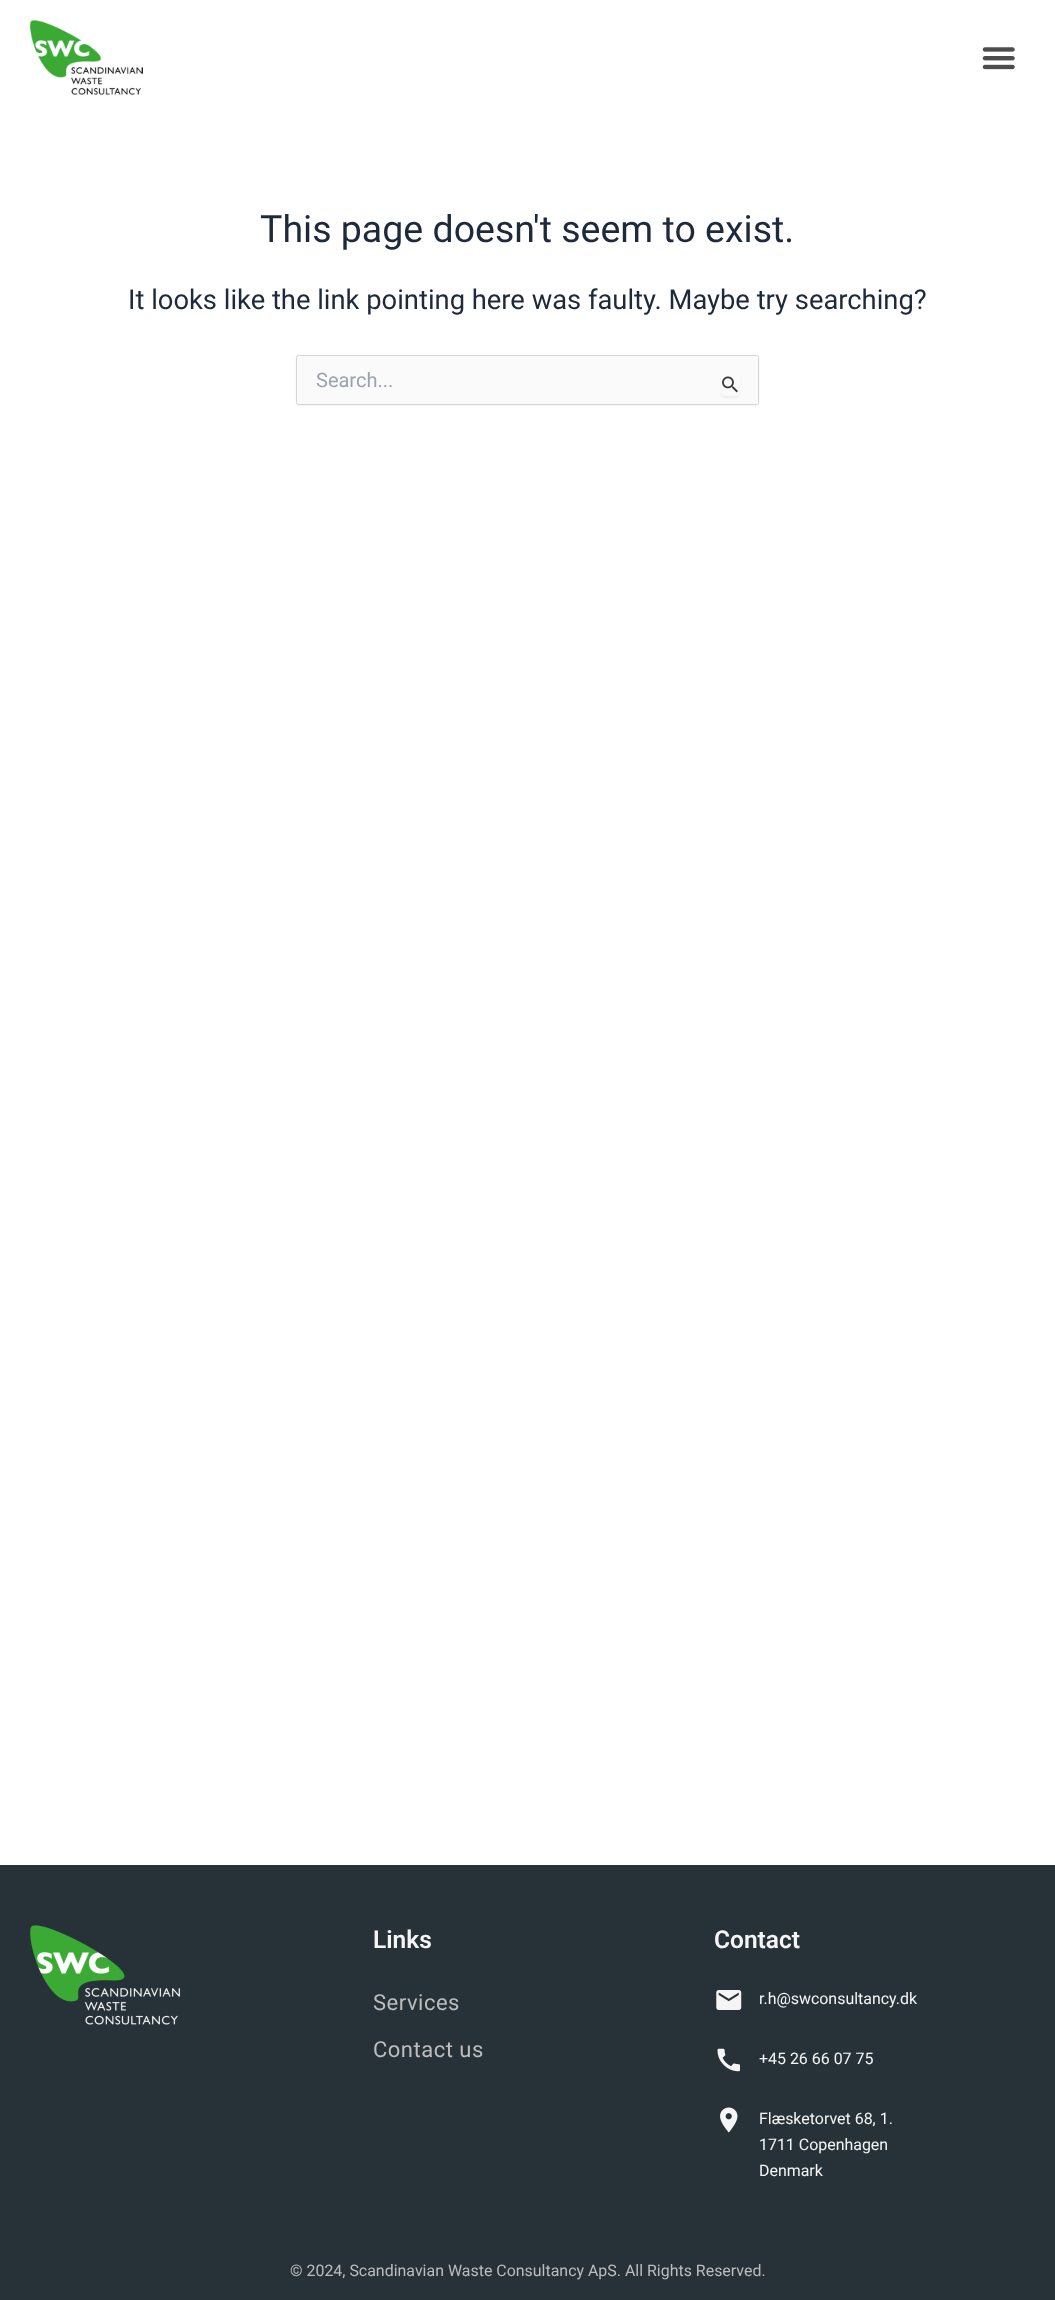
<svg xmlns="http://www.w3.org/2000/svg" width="1055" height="2300">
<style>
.a{font:37.5px Roboto;fill:#1e293b}
.b{font:27.35px Roboto;fill:#1e293b}
.c{font:20px Roboto;fill:#9ca3af}
.d{font:600 24.5px Roboto;fill:#f5f5f5}
.e{font:22px Roboto;letter-spacing:0.5px;fill:#bdbdbd}
.f{font:15.95px Roboto;fill:#f5f5f5}
.g{font:15.95px Roboto;fill:#bdbdbd}
</style>
<defs>
<clipPath id="clip1"><path d="M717 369h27v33h-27zm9 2h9c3 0 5 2 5 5v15c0 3-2 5-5 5h-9c-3 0-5-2-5-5v-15c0-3 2-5 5-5z" clip-rule="evenodd"/></clipPath>
</defs>
<rect width="100%" height="100%" fill="#fff"/>
<image href="1.png" x="30" y="20" width="113" height="75"/>
<image href="2.png" x="982" y="47" width="33" height="23"/>
<rect fill="#0000000d" filter="blur(1px)" x="296" y="356" width="463" height="50" rx="2.5"/>
<rect fill="#fafafa" stroke="#d1d5db" x="296.5" y="355.5" width="462" height="49" rx="2"/>
<g clip-path="url(#clip1)">
<rect fill="#0000000d" filter="blur(1px)" x="721" y="373" width="19" height="25" rx="5"/>
</g>
<image href="3.png" x="722" y="376" width="16" height="17"/>
<path fill="#263238" d="M0 1865h1055v435H0z"/>
<image href="4.png" x="30" y="1925" width="150" height="100"/>
<image href="5.png" x="716" y="1990" width="26" height="20"/>
<image href="6.png" x="717" y="2048" width="23" height="24"/>
<image href="7.png" x="720" y="2107" width="18" height="26"/>
<text class="a" x="260" y="242">This page doesn't seem to exist.</text>
<text class="b" x="128" y="309">It looks like the link pointing here was faulty. Maybe try searching?</text>
<text class="c" x="316" y="387">Search...</text>
<text class="d" x="373" y="1948">Links</text>
<text class="e" x="373" y="2010">Services</text>
<text class="e" x="373" y="2057">Contact us</text>
<text class="d" x="714" y="1948">Contact</text>
<text class="f" x="759" y="2004">r.h@swconsultancy.dk</text>
<text class="f" x="759" y="2064">+45 26 66 07 75</text>
<text class="f" x="759" y="2124">Flæsketorvet 68, 1.</text>
<text class="f" x="759" y="2150">1711 Copenhagen</text>
<text class="f" x="759" y="2176">Denmark</text>
<text class="g" x="290" y="2276">© 2024, Scandinavian Waste Consultancy ApS. All Rights Reserved.</text>
</svg>
